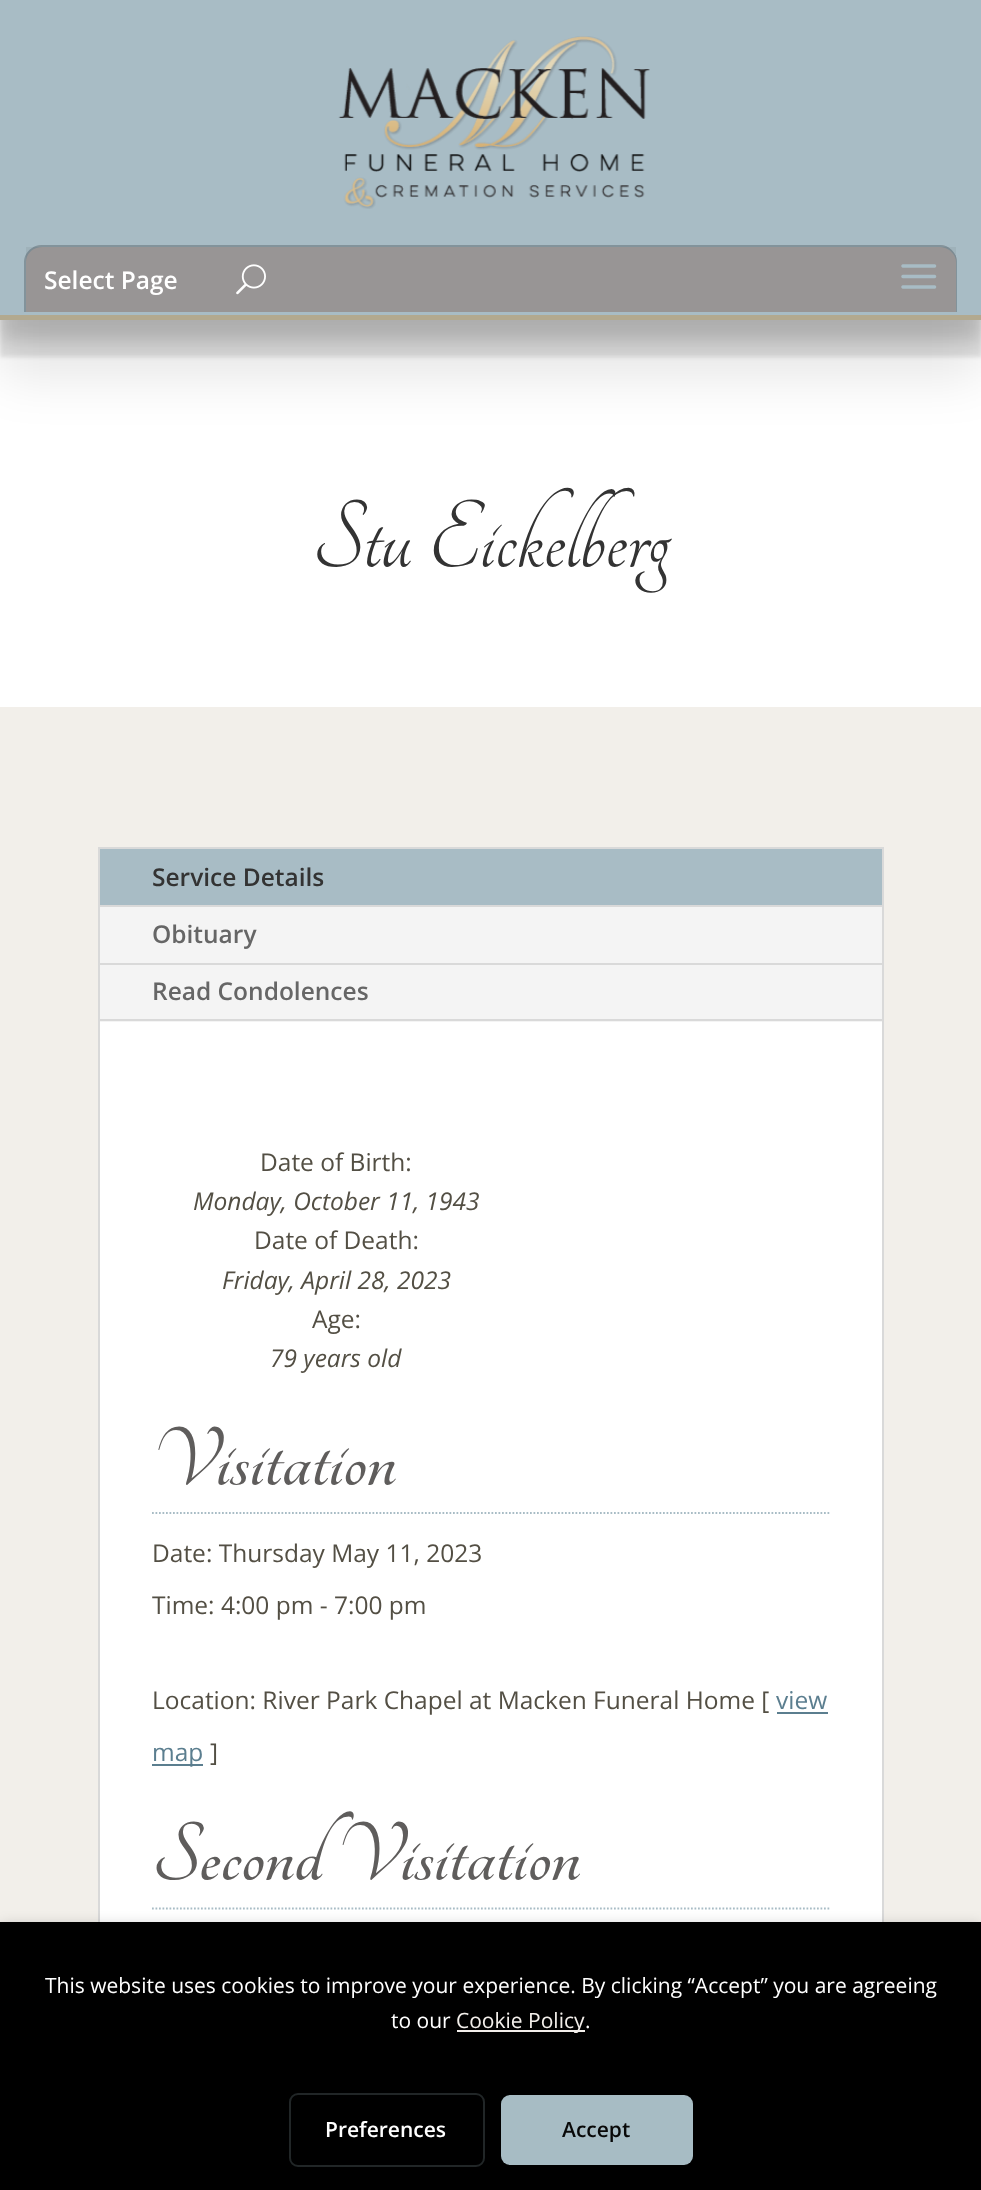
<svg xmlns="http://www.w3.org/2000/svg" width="981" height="2190">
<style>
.a{font:600 24.5px Open Sans;fill:#fff}
.b{font:105px Tangerine;fill:#333}
.c{font:600 24.5px Open Sans;fill:#333}
.d{font:600 24.5px Open Sans;fill:#666}
.e{font:24.5px Open Sans;fill:#534f44}
.f{font:italic 24.5px Open Sans;fill:#534f44}
.g{font:bold 91px Tangerine;fill:#5f5d5c}
.h{font:24.5px Open Sans;fill:#5b7e8f}
.i{font:21px Open Sans;fill:#fff}
.j{font:21px Open Sans;fill:#f3efeb}
.k{font:600 21px Open Sans;fill:#fff}
.l{font:600 21px Open Sans;fill:#080808}
</style>
<rect width="100%" height="100%" fill="#fff"/>
<path fill="#0000001a" filter="blur(26px)" d="M0 60h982v315H0z"/>
<path fill="#0000001a" filter="blur(2px)" d="M0 42h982v315H0z"/>
<path fill="#00000026" filter="blur(9px)" d="M0 25h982v315H0z"/>
<path fill="#b2a98f" d="M0 315v5h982v-315v310z"/>
<path fill="#a8bcc5" d="M0 0h981v315H0z"/>
<image href="1.png" x="338" y="36" width="312" height="173"/>
<path fill="#a19d9d" d="M43 245h896c10 0 18 8 18 18v49h-932v-49c0-10 8-18 18-18z"/>
<path fill="#82939b" fill-rule="evenodd" d="M42 245h898c9 0 17 8 17 17v50h-933v-50c0-9 8-17 18-17zm0 2h898c8 0 16 7 16 15v50h-930v-50c0-8 7-15 16-15z"/>
<path fill="#0000000d" d="M26 247h930v65H26z"/>
<image href="2.png" x="901" y="264" width="36" height="25"/>
<image href="3.png" x="236" y="264" width="30" height="31"/>
<path fill="#f2efea" d="M0 707h981v1215H0z"/>
<path fill="none" stroke="#d9d9d9" stroke-width="2" d="M99 848h784v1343H99z"/>
<path fill="#f4f4f4" d="M100 907h782v115H100z"/>
<path fill="#a8bcc5" d="M100 849h782v56H100z"/>
<path fill="#d9d9d9" d="M100 905h782v2H100z"/>
<path fill="#d9d9d9" d="M100 963h782v2H100z"/>
<path fill="#d9d9d9" d="M100 1019h782v2H100z"/>
<path fill="#fff" d="M100 1022h782v900H100z"/>
<path fill="none" stroke="#a8bcc5" stroke-width="1.8" stroke-dasharray="1.75 1.75" d="M152 1513h677.5"/>
<path fill="#5b7e8f" d="M777 1712h51v2H777z"/>
<path fill="#5b7e8f" d="M152 1764h51v2H152z"/>
<path fill="none" stroke="#a8bcc5" stroke-width="1.8" stroke-dasharray="1.75 1.75" d="M152 1908.5h677.5"/>
<path fill="#00000033" filter="blur(7px)" d="M0 1925h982v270H0z"/>
<path fill="#000" d="M0 1922h981v268H0z"/>
<path fill="#f3efeb" d="M457 2030h128v2H457z"/>
<rect fill="none" stroke="#212627" stroke-width="2" x="290" y="2094" width="194" height="72" rx="8"/>
<rect fill="#a7bcc4" x="501" y="2095" width="192" height="70" rx="9"/>
<text class="a" x="44" y="289">Select Page</text>
<text class="b" x="312" y="567">Stu Eickelberg</text>
<text class="c" x="152" y="886">Service Details</text>
<text class="d" x="152" y="943">Obituary</text>
<text class="d" x="152" y="1000">Read Condolences</text>
<text class="e" x="260" y="1171">Date of Birth:</text>
<text class="f" x="193" y="1210">Monday, October 11, 1943</text>
<text class="e" x="254" y="1249">Date of Death:</text>
<text class="f" x="222" y="1289">Friday, April 28, 2023</text>
<text class="e" x="312" y="1328">Age:</text>
<text class="f" x="270" y="1367">79 years old</text>
<text class="g" x="152" y="1485">Visitation</text>
<text class="e" x="152" y="1562">Date: Thursday May 11, 2023</text>
<text class="e" x="152" y="1614">Time: 4:00 pm - 7:00 pm</text>
<text class="e" x="152" y="1709">Location: River Park Chapel at Macken Funeral Home [</text>
<text class="h" x="776" y="1709">view</text>
<text class="h" x="152" y="1761">map</text>
<text class="e" x="210" y="1761">]</text>
<text class="g" x="152" y="1880">Second Visitation</text>
<text class="i" x="45" y="1993">This website uses cookies to improve your experience. By clicking “Accept” you are agreeing</text>
<text class="i" x="391" y="2028">to our</text>
<text class="j" x="456" y="2028">Cookie Policy</text>
<text class="i" x="585" y="2028">.</text>
<text class="k" x="325" y="2137">Preferences</text>
<text class="l" x="562" y="2137">Accept</text>
</svg>
